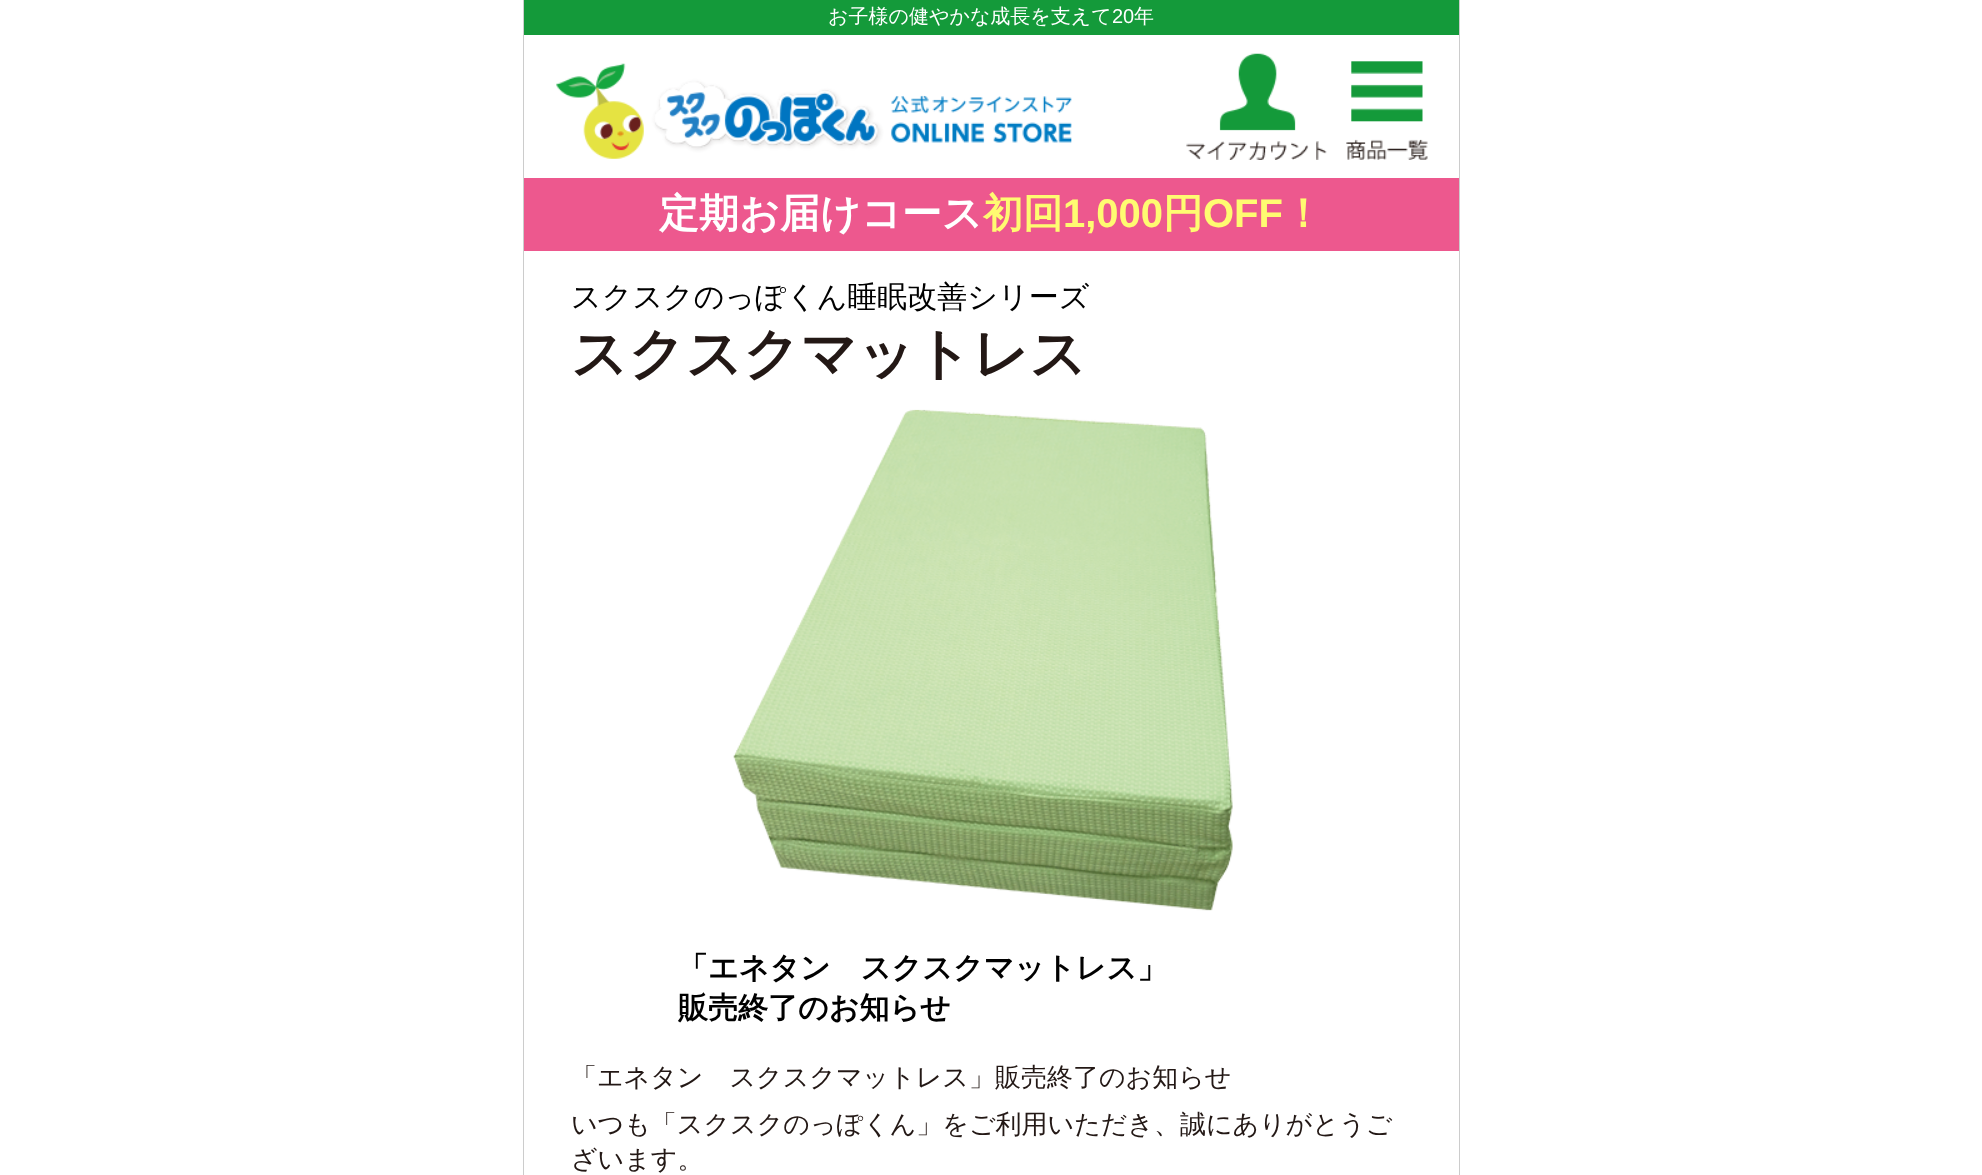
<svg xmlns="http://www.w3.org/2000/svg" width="1982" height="1175">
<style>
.a{font:500 20px WenQuanYi Zen Hei;fill:#fff}
.b{font:20px Liberation Sans;fill:#fff}
.c{font:bold 40px WenQuanYi Zen Hei;fill:#fff}
.d{font:bold 40px WenQuanYi Zen Hei;fill:#fffb71}
.e{font:bold 40px Liberation Sans;fill:#fffb71}
.f{font:500 30px WenQuanYi Zen Hei;fill:#000}
.g{font:bold 56px WenQuanYi Zen Hei;fill:#231815}
.h{font:bold 30px WenQuanYi Zen Hei;fill:#000}
.i{font:500 26px WenQuanYi Zen Hei;fill:#231815}
</style>
<rect width="100%" height="100%" fill="#fff"/>
<path fill="#ccc" d="M1459 0h1v1175H1459z"/>
<path fill="#ccc" d="M523 0h1v1175H523z"/>
<path fill="#149a3a" d="M524 0h935v35H524z"/>
<image href="1.png" x="556" y="63" width="516" height="96"/>
<image href="2.png" x="1186" y="53" width="141" height="107"/>
<image href="3.png" x="1346" y="61" width="82" height="99"/>
<path fill="#ed588e" d="M524 178h935v73H524z"/>
<image href="4.png" x="733" y="409" width="500" height="502"/>
<text class="a" x="828" y="23">お子様の健やかな成長を支えて</text>
<text class="b" x="1112" y="23">20</text>
<text class="a" x="1134" y="23">年</text>
<text class="c" x="659" y="227">定期お届けコース</text>
<text class="d" x="983" y="227">初回</text>
<text class="e" x="1063" y="227">1,000</text>
<text class="d" x="1163" y="227">円</text>
<text class="e" x="1203" y="227">OFF</text>
<text class="d" x="1283" y="227">！</text>
<text class="f" x="571" y="307">スクスクのっぽくん睡眠改善シリーズ</text>
<text class="g" x="571" y="373">スクスクマットレス</text>
<text class="h" x="678" y="978">「エネタン　スクスクマットレス」</text>
<text class="h" x="678" y="1018">販売終了のお知らせ</text>
<text class="i" x="571" y="1086">「エネタン　スクスクマットレス」販売終了のお知らせ</text>
<text class="i" x="571" y="1133">いつも「スクスクのっぽくん」をご利用いただき、誠にありがとうご</text>
<text class="i" x="571" y="1168">ざいます。</text>
</svg>
